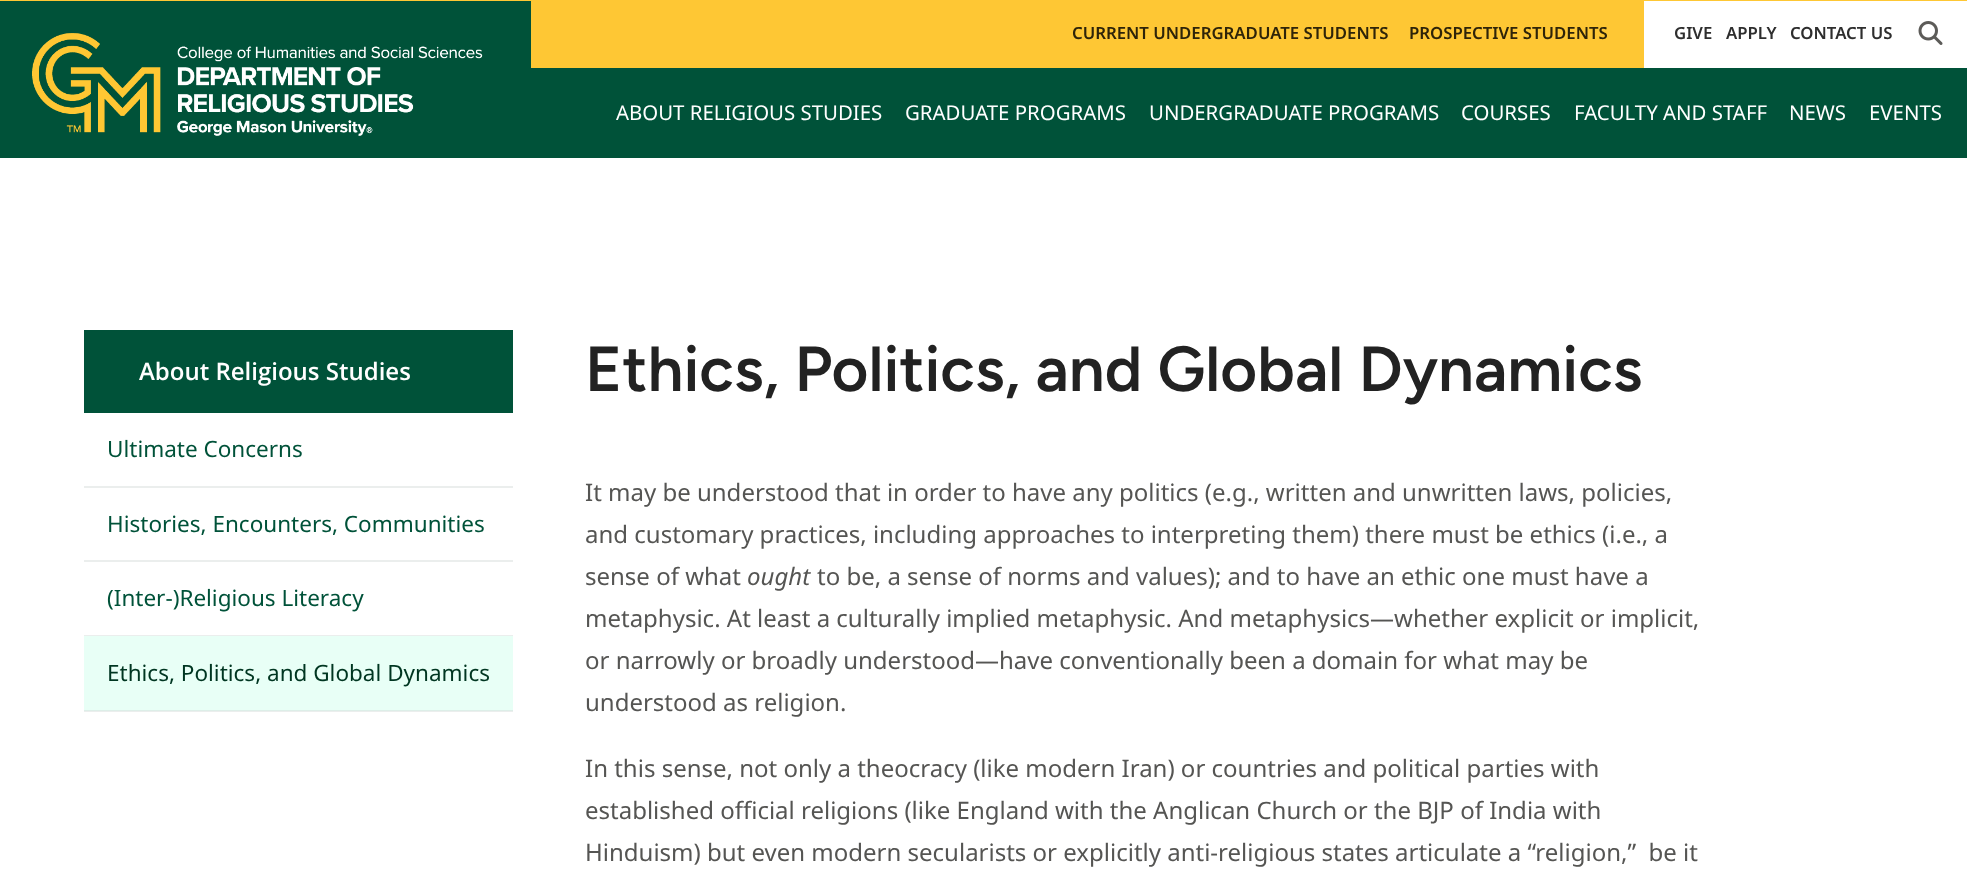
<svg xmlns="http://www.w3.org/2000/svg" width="1967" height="885">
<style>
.a{font:600 16.75px Noto Sans;fill:#2e2409}
.b{font:600 16.75px Noto Sans;fill:#2e2e2e}
.c{font:20.4px Noto Sans;fill:#fff}
.d{font:600 24px Open Sans;fill:#fff}
.e{font:22.5px Noto Sans;fill:#005239}
.f{font:22.5px Noto Sans;fill:#003621}
.g{font:600 63.6px Figtree;fill:#222}
.h{font:24px Noto Sans;fill:#555553}
.i{font:italic 24px Noto Sans;fill:#555553}
</style>
<rect width="100%" height="100%" fill="#fff"/>
<path fill="#ebeeed" d="M84 711h429v1H84z"/>
<path fill="#005239" d="M0 68h1967v90H0z"/>
<path fill="#fec734" d="M0 0h1967v1H0z"/>
<path fill="#005239" d="M0 1h531v67H0z"/>
<image href="1.png" x="32" y="33" width="451" height="103"/>
<path fill="#fec734" d="M531 1h1113v67H531z"/>
<image href="2.png" x="1918" y="21" width="25" height="24"/>
<path fill="#005239" d="M84 330h429v83H84z"/>
<path fill="#ebeeed" d="M84 486h429v2H84z"/>
<path fill="#ebeeed" d="M84 560h429v2H84z"/>
<path fill="#ebeeed" d="M84 635h429v1H84z"/>
<path fill="#e8fff6" d="M84 636h429v74H84z"/>
<path fill="#ddeee8" d="M84 710h429v1H84z"/>
<text class="a" x="1072" y="39">CURRENT UNDERGRADUATE STUDENTS</text>
<text class="a" x="1409" y="39">PROSPECTIVE STUDENTS</text>
<text class="b" x="1674" y="39">GIVE</text>
<text class="b" x="1726" y="39">APPLY</text>
<text class="b" x="1790" y="39">CONTACT US</text>
<text class="c" x="616" y="120">ABOUT RELIGIOUS STUDIES</text>
<text class="c" x="905" y="120">GRADUATE PROGRAMS</text>
<text class="c" x="1149" y="120">UNDERGRADUATE PROGRAMS</text>
<text class="c" x="1461" y="120">COURSES</text>
<text class="c" x="1574" y="120">FACULTY AND STAFF</text>
<text class="c" x="1789" y="120">NEWS</text>
<text class="c" x="1869" y="120">EVENTS</text>
<text class="d" x="139" y="380">About Religious Studies</text>
<text class="e" x="107" y="457">Ultimate Concerns</text>
<text class="e" x="107" y="532">Histories, Encounters, Communities</text>
<text class="e" x="107" y="606">(Inter-)Religious Literacy</text>
<text class="f" x="107" y="681">Ethics, Politics, and Global Dynamics</text>
<text class="g" x="585" y="391">Ethics, Politics, and Global Dynamics</text>
<text class="h" x="585" y="501">It may be understood that in order to have any politics (e.g., written and unwritten laws, policies,</text>
<text class="h" x="585" y="543">and customary practices, including approaches to interpreting them) there must be ethics (i.e., a</text>
<text class="h" x="585" y="585">sense of what</text>
<text class="i" x="747" y="585">ought</text>
<text class="h" x="817" y="585">to be, a sense of norms and values); and to have an ethic one must have a</text>
<text class="h" x="585" y="627">metaphysic. At least a culturally implied metaphysic. And metaphysics—whether explicit or implicit,</text>
<text class="h" x="585" y="669">or narrowly or broadly understood—have conventionally been a domain for what may be</text>
<text class="h" x="585" y="711">understood as religion.</text>
<text class="h" x="585" y="777">In this sense, not only a theocracy (like modern Iran) or countries and political parties with</text>
<text class="h" x="585" y="819">established official religions (like England with the Anglican Church or the BJP of India with</text>
<text class="h" xml:space="preserve" x="585" y="861">Hinduism) but even modern secularists or explicitly anti-religious states articulate a “religion,”  be it</text>
</svg>
